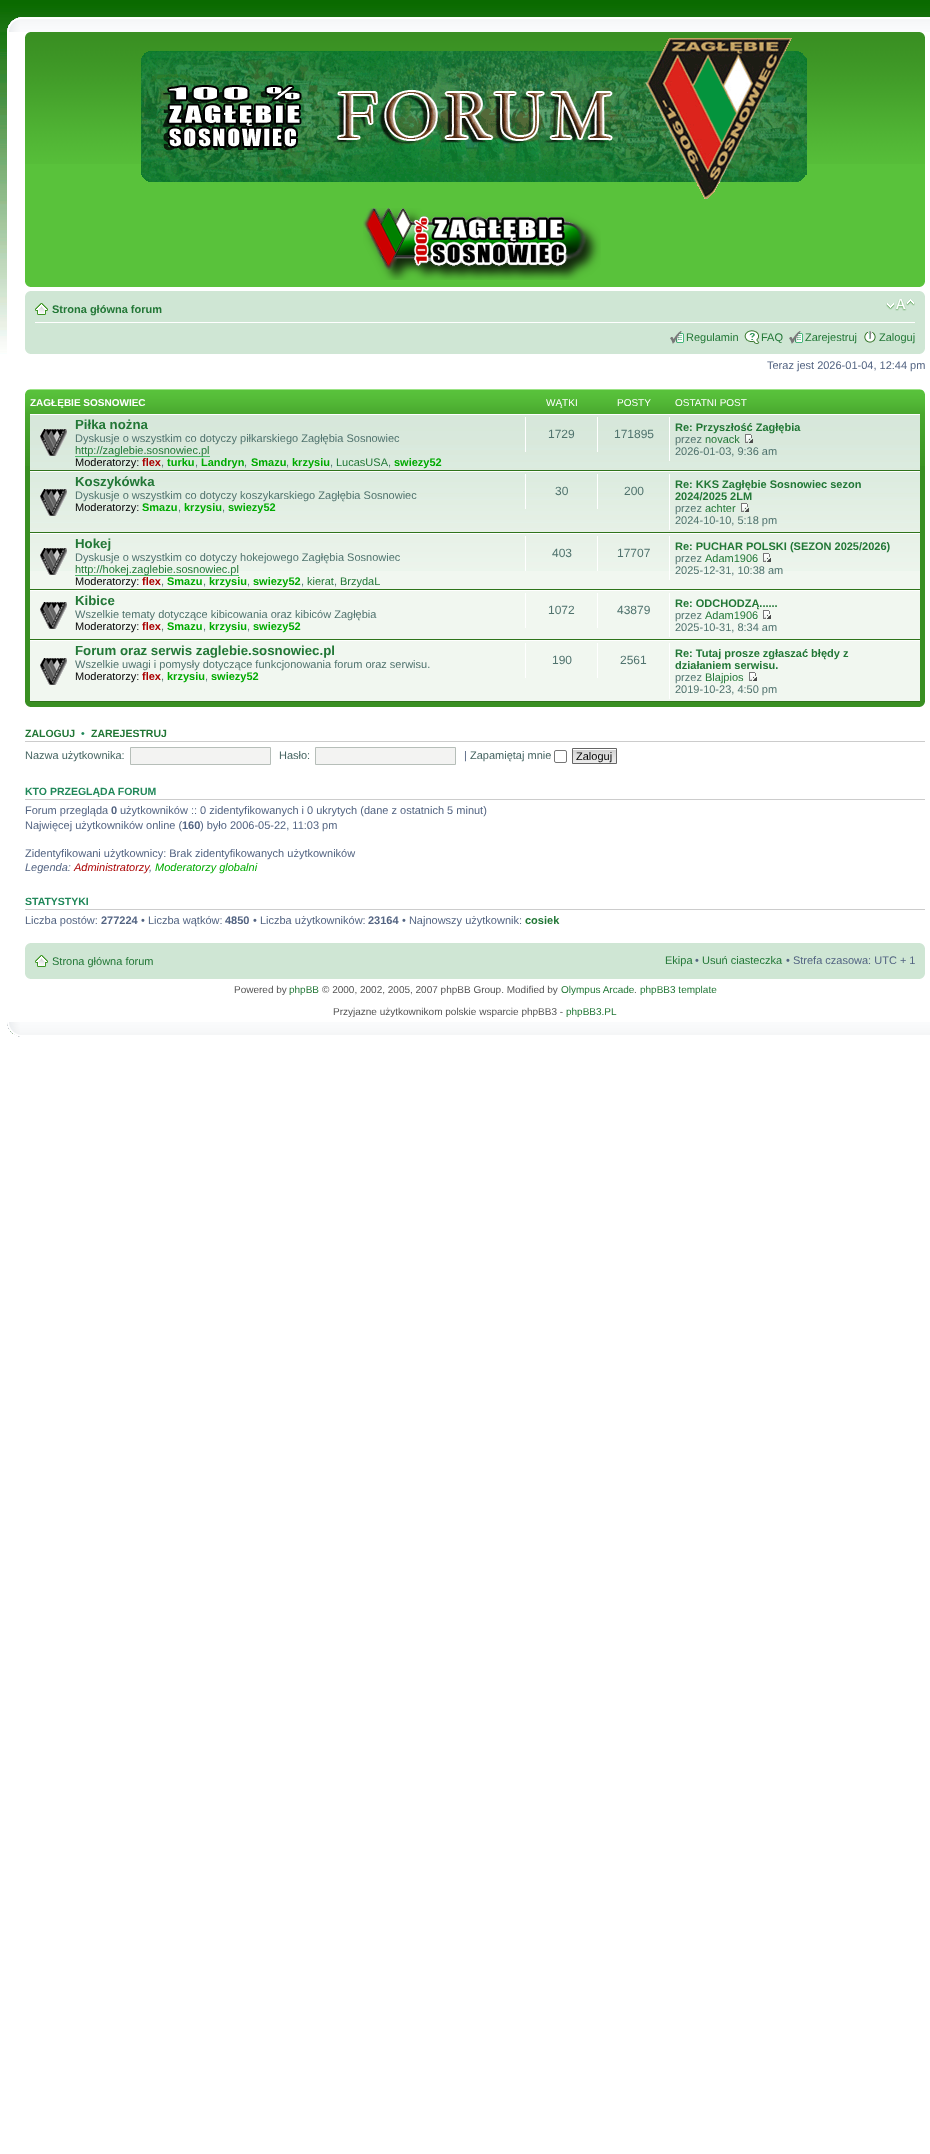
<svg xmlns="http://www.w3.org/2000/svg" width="930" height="2154">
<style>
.a{font:bold 11px Liberation Sans;fill:#227736}
.b{font:11px Liberation Sans;fill:#227736}
.c{font:11px Liberation Sans;fill:#536482}
.d{font:bold 10px Liberation Sans;fill:#fff}
.e{font:10px Liberation Sans;fill:#fff}
.f{font:bold 13.25px Liberation Sans;fill:#227736}
.g{font:11px Liberation Sans;fill:#50736e}
.h{font:11px Liberation Sans;fill:#000}
.i{font:bold 11px Liberation Sans;fill:#a00}
.j{font:bold 11px Liberation Sans;fill:#0a0}
.k{font:12px Liberation Sans;fill:#50736e}
.l{font:bold 10.5px Liberation Sans;fill:#227736}
.m{font:bold 10.5px Liberation Sans;fill:#21885a}
.n{font:11px Liberation Sans;fill:#456461}
.o{font:bold 11px Liberation Sans;fill:#536482}
.p{font:italic 11px Liberation Sans;fill:#536482}
.q{font:italic 11px Liberation Sans;fill:#a00}
.r{font:italic 11px Liberation Sans;fill:#0a0}
.s{font:10px Liberation Sans;fill:#555}
.t{font:10px Liberation Sans;fill:#227736}
</style>
<rect width="100%" height="100%" fill="#fff"/>
<image href="1.png" x="0" y="0" width="930" height="32"/>
<image href="2.png" x="7" y="17" width="13" height="15"/>
<image href="3.png" x="20" y="17" width="910" height="15"/>
<image href="4.png" x="0" y="32" width="7" height="322"/>
<path fill="#59c23b" d="M25 164h900v123H25z"/>
<image href="5.png" x="25" y="32" width="900" height="132"/>
<image href="6.png" x="25" y="32" width="6" height="5"/>
<image href="7.png" x="919" y="32" width="6" height="5"/>
<image href="8.png" x="141" y="38" width="666" height="161"/>
<image href="9.png" x="363" y="208" width="238" height="72"/>
<image href="10.png" x="25" y="282" width="5" height="5"/>
<image href="11.png" x="920" y="282" width="5" height="5"/>
<path fill="#cfe6d4" d="M25 291h900v63H25z"/>
<image href="12.png" x="25" y="291" width="5" height="5"/>
<image href="13.png" x="920" y="291" width="5" height="5"/>
<path fill="#fff" d="M35 322h880v1H35z"/>
<image href="14.png" x="35" y="303" width="13" height="12"/>
<image href="15.png" x="886" y="299" width="29" height="12"/>
<image href="16.png" x="670" y="331" width="14" height="13"/>
<image href="17.png" x="744" y="330" width="16" height="14"/>
<image href="16.png" x="789" y="331" width="14" height="13"/>
<image href="18.png" x="864" y="331" width="12" height="12"/>
<image href="19.png" x="25" y="349" width="5" height="5"/>
<image href="20.png" x="920" y="349" width="5" height="5"/>
<path fill="#398f22" d="M25 466h900v241H25z"/>
<image href="21.png" x="25" y="389" width="900" height="77"/>
<image href="22.png" x="25" y="389" width="5" height="5"/>
<image href="23.png" x="920" y="389" width="5" height="5"/>
<path fill="#f1f7f0" d="M30 571h890v130H30z"/>
<image href="24.png" x="30" y="415" width="890" height="156"/>
<path fill="#fff" d="M30 414h890v1H30z"/>
<path fill="#2f741b" d="M30 470h890v1H30z"/>
<image href="25.png" x="40" y="429" width="27" height="27"/>
<path fill="#4dbb69" d="M75 456h135v1H75z"/>
<path fill="#fff" d="M525 417h1v35H525z"/>
<path fill="#fff" d="M597 417h1v35H597z"/>
<path fill="#fff" d="M669 417h1v44H669z"/>
<image href="26.png" x="745" y="434" width="8" height="9"/>
<path fill="#fff" d="M30 471h890v1H30z"/>
<path fill="#2f741b" d="M30 532h890v1H30z"/>
<image href="27.png" x="40" y="489" width="27" height="27"/>
<path fill="#fff" d="M525 474h1v35H525z"/>
<path fill="#fff" d="M597 474h1v35H597z"/>
<path fill="#fff" d="M669 474h1v56H669z"/>
<image href="28.png" x="741" y="503" width="8" height="9"/>
<path fill="#fff" d="M30 533h890v1H30z"/>
<path fill="#2f741b" d="M30 589h890v1H30z"/>
<image href="29.png" x="40" y="548" width="27" height="27"/>
<path fill="#4dbb69" d="M75 575h164v1H75z"/>
<path fill="#fff" d="M525 536h1v35H525z"/>
<path fill="#fff" d="M597 536h1v35H597z"/>
<path fill="#fff" d="M669 536h1v44H669z"/>
<image href="30.png" x="763" y="553" width="8" height="9"/>
<path fill="#fff" d="M30 590h890v1H30z"/>
<path fill="#2f741b" d="M30 639h890v1H30z"/>
<image href="31.png" x="40" y="602" width="27" height="27"/>
<path fill="#fff" d="M525 593h1v35H525z"/>
<path fill="#fff" d="M597 593h1v35H597z"/>
<path fill="#fff" d="M669 593h1v44H669z"/>
<image href="32.png" x="763" y="610" width="8" height="9"/>
<path fill="#fff" d="M30 640h890v1H30z"/>
<path fill="#2f741b" d="M30 701h890v1H30z"/>
<image href="31.png" x="40" y="658" width="27" height="27"/>
<path fill="#fff" d="M525 643h1v35H525z"/>
<path fill="#fff" d="M597 643h1v35H597z"/>
<path fill="#fff" d="M669 643h1v56H669z"/>
<image href="32.png" x="749" y="672" width="8" height="9"/>
<image href="33.png" x="25" y="702" width="5" height="5"/>
<image href="34.png" x="920" y="702" width="5" height="5"/>
<path fill="#ccc" d="M25 741h900v1H25z"/>
<path fill="#f3f3f2" stroke="#b6beb9" d="M130.5 747.5h140v17H130.5z"/>
<path fill="#f3f3f2" stroke="#b6beb9" d="M315.5 747.5h140v17H315.5z"/>
<rect fill="none" stroke="#767676" x="554.5" y="750.5" width="12" height="12" rx="1.5"/>
<image href="35.png" x="573" y="749" width="43" height="14"/>
<path fill="none" stroke="#666" d="M572.5 748.5h44v15H572.5z"/>
<path fill="#ccc" d="M25 799h900v1H25z"/>
<path fill="#ccc" d="M25 909h900v1H25z"/>
<path fill="#cfe6d4" d="M25 943h900v36H25z"/>
<image href="12.png" x="25" y="943" width="5" height="5"/>
<image href="13.png" x="920" y="943" width="5" height="5"/>
<image href="14.png" x="35" y="955" width="13" height="12"/>
<image href="19.png" x="25" y="974" width="5" height="5"/>
<image href="20.png" x="920" y="974" width="5" height="5"/>
<image href="36.png" x="7" y="1022" width="13" height="15"/>
<image href="37.png" x="20" y="1022" width="910" height="15"/>
<text class="a" x="52" y="313">Strona główna forum</text>
<text class="b" x="686" y="341">Regulamin</text>
<text class="b" x="761" y="341">FAQ</text>
<text class="b" x="805" y="341">Zarejestruj</text>
<text class="b" x="879" y="341">Zaloguj</text>
<text class="c" x="767" y="369">Teraz jest 2026-01-04, 12:44 pm</text>
<text class="d" x="30" y="406">ZAGŁĘBIE SOSNOWIEC</text>
<text class="e" x="546" y="406">WĄTKI</text>
<text class="e" x="617" y="406">POSTY</text>
<text class="e" x="675" y="406">OSTATNI POST</text>
<text class="f" x="75" y="429">Piłka nożna</text>
<text class="g" x="75" y="442">Dyskusje o wszystkim co dotyczy piłkarskiego Zagłębia Sosnowiec</text>
<text class="b" x="75" y="454">http://zaglebie.sosnowiec.pl</text>
<text class="h" x="75" y="466">Moderatorzy:</text>
<text class="i" x="142" y="466">flex</text>
<text class="g" x="161" y="466">,</text>
<text class="j" x="167" y="466">turku</text>
<text class="g" x="195" y="466">,</text>
<text class="j" x="201" y="466">Landryn</text>
<text class="g" x="244" y="466">,</text>
<text class="j" x="251" y="466">Smazu</text>
<text class="g" x="286" y="466">,</text>
<text class="j" x="292" y="466">krzysiu</text>
<text class="g" x="330" y="466">,</text>
<text class="b" x="336" y="466">LucasUSA</text>
<text class="g" x="388" y="466">,</text>
<text class="j" x="394" y="466">swiezy52</text>
<text class="k" x="548" y="438">1729</text>
<text class="k" x="614" y="438">171895</text>
<text class="a" x="675" y="431">Re: Przyszłość Zagłębia</text>
<text class="g" x="675" y="443">przez</text>
<text class="b" x="705" y="443">novack</text>
<text class="g" x="675" y="455">2026-01-03, 9:36 am</text>
<text class="f" x="75" y="486">Koszykówka</text>
<text class="g" x="75" y="499">Dyskusje o wszystkim co dotyczy koszykarskiego Zagłębia Sosnowiec</text>
<text class="h" x="75" y="511">Moderatorzy:</text>
<text class="j" x="142" y="511">Smazu</text>
<text class="g" x="178" y="511">,</text>
<text class="j" x="184" y="511">krzysiu</text>
<text class="g" x="222" y="511">,</text>
<text class="j" x="228" y="511">swiezy52</text>
<text class="k" x="555" y="495">30</text>
<text class="k" x="624" y="495">200</text>
<text class="a" x="675" y="488">Re: KKS Zagłębie Sosnowiec sezon</text>
<text class="a" x="675" y="500">2024/2025 2LM</text>
<text class="g" x="675" y="512">przez</text>
<text class="b" x="705" y="512">achter</text>
<text class="g" x="675" y="524">2024-10-10, 5:18 pm</text>
<text class="f" x="75" y="548">Hokej</text>
<text class="g" x="75" y="561">Dyskusje o wszystkim co dotyczy hokejowego Zagłębia Sosnowiec</text>
<text class="b" x="75" y="573">http://hokej.zaglebie.sosnowiec.pl</text>
<text class="h" x="75" y="585">Moderatorzy:</text>
<text class="i" x="142" y="585">flex</text>
<text class="g" x="161" y="585">,</text>
<text class="j" x="167" y="585">Smazu</text>
<text class="g" x="203" y="585">,</text>
<text class="j" x="209" y="585">krzysiu</text>
<text class="g" x="247" y="585">,</text>
<text class="j" x="253" y="585">swiezy52</text>
<text class="g" x="301" y="585">,</text>
<text class="b" x="307" y="585">kierat</text>
<text class="g" x="334" y="585">,</text>
<text class="b" x="340" y="585">BrzydaL</text>
<text class="k" x="552" y="557">403</text>
<text class="k" x="617" y="557">17707</text>
<text class="a" x="675" y="550">Re: PUCHAR POLSKI (SEZON 2025/2026)</text>
<text class="g" x="675" y="562">przez</text>
<text class="b" x="705" y="562">Adam1906</text>
<text class="g" x="675" y="574">2025-12-31, 10:38 am</text>
<text class="f" x="75" y="605">Kibice</text>
<text class="g" x="75" y="618">Wszelkie tematy dotyczące kibicowania oraz kibiców Zagłębia</text>
<text class="h" x="75" y="630">Moderatorzy:</text>
<text class="i" x="142" y="630">flex</text>
<text class="g" x="161" y="630">,</text>
<text class="j" x="167" y="630">Smazu</text>
<text class="g" x="203" y="630">,</text>
<text class="j" x="209" y="630">krzysiu</text>
<text class="g" x="247" y="630">,</text>
<text class="j" x="253" y="630">swiezy52</text>
<text class="k" x="548" y="614">1072</text>
<text class="k" x="617" y="614">43879</text>
<text class="a" x="675" y="607">Re: ODCHODZĄ......</text>
<text class="g" x="675" y="619">przez</text>
<text class="b" x="705" y="619">Adam1906</text>
<text class="g" x="675" y="631">2025-10-31, 8:34 am</text>
<text class="f" x="75" y="655">Forum oraz serwis zaglebie.sosnowiec.pl</text>
<text class="g" x="75" y="668">Wszelkie uwagi i pomysły dotyczące funkcjonowania forum oraz serwisu.</text>
<text class="h" x="75" y="680">Moderatorzy:</text>
<text class="i" x="142" y="680">flex</text>
<text class="g" x="161" y="680">,</text>
<text class="j" x="167" y="680">krzysiu</text>
<text class="g" x="205" y="680">,</text>
<text class="j" x="211" y="680">swiezy52</text>
<text class="k" x="552" y="664">190</text>
<text class="k" x="620" y="664">2561</text>
<text class="a" x="675" y="657">Re: Tutaj prosze zgłaszać błędy z</text>
<text class="a" x="675" y="669">działaniem serwisu.</text>
<text class="g" x="675" y="681">przez</text>
<text class="b" x="705" y="681">Blajpios</text>
<text class="g" x="675" y="693">2019-10-23, 4:50 pm</text>
<text class="l" x="25" y="737">ZALOGUJ</text>
<text class="m" x="81" y="737">•</text>
<text class="l" x="91" y="737">ZAREJESTRUJ</text>
<text class="n" x="25" y="759">Nazwa użytkownika:</text>
<text class="n" x="279" y="759">Hasło:</text>
<text class="c" x="464" y="759">|</text>
<text class="n" x="470" y="759">Zapamiętaj mnie</text>
<text class="h" x="576" y="760">Zaloguj</text>
<text class="m" x="25" y="795">KTO PRZEGLĄDA FORUM</text>
<text class="c" x="25" y="814">Forum przegląda</text>
<text class="o" x="111" y="814">0</text>
<text class="c" x="120" y="814">użytkowników :: 0 zidentyfikowanych i 0 ukrytych (dane z ostatnich 5 minut)</text>
<text class="c" x="25" y="829">Najwięcej użytkowników online (</text>
<text class="o" x="182" y="829">160</text>
<text class="c" x="200" y="829">) było 2006-05-22, 11:03 pm</text>
<text class="c" x="25" y="857">Zidentyfikowani użytkownicy: Brak zidentyfikowanych użytkowników</text>
<text class="p" x="25" y="871">Legenda:</text>
<text class="q" x="74" y="871">Administratorzy</text>
<text class="r" x="155" y="871">Moderatorzy globalni</text>
<text class="p" x="149" y="871">,</text>
<text class="m" x="25" y="905">STATYSTYKI</text>
<text class="c" x="25" y="924">Liczba postów:</text>
<text class="o" x="101" y="924">277224</text>
<text class="c" x="141" y="924">• Liczba wątków:</text>
<text class="o" x="225" y="924">4850</text>
<text class="c" x="253" y="924">• Liczba użytkowników:</text>
<text class="o" x="368" y="924">23164</text>
<text class="c" x="402" y="924">• Najnowszy użytkownik:</text>
<text class="a" x="525" y="924">cosiek</text>
<text class="b" x="52" y="965">Strona główna forum</text>
<text class="b" x="665" y="964">Ekipa</text>
<text class="c" x="695" y="964">•</text>
<text class="b" x="702" y="964">Usuń ciasteczka</text>
<text class="c" x="786" y="964">• Strefa czasowa: UTC + 1</text>
<text class="s" x="234" y="993">Powered by</text>
<text class="t" x="289" y="993">phpBB</text>
<text class="s" x="322" y="993">© 2000, 2002, 2005, 2007 phpBB Group. Modified by</text>
<text class="t" x="561" y="993">Olympus Arcade</text>
<text class="s" x="634" y="993">.</text>
<text class="t" x="640" y="993">phpBB3 template</text>
<text class="s" x="333" y="1015">Przyjazne użytkownikom polskie wsparcie phpBB3 -</text>
<text class="t" x="566" y="1015">phpBB3.PL</text>
</svg>
